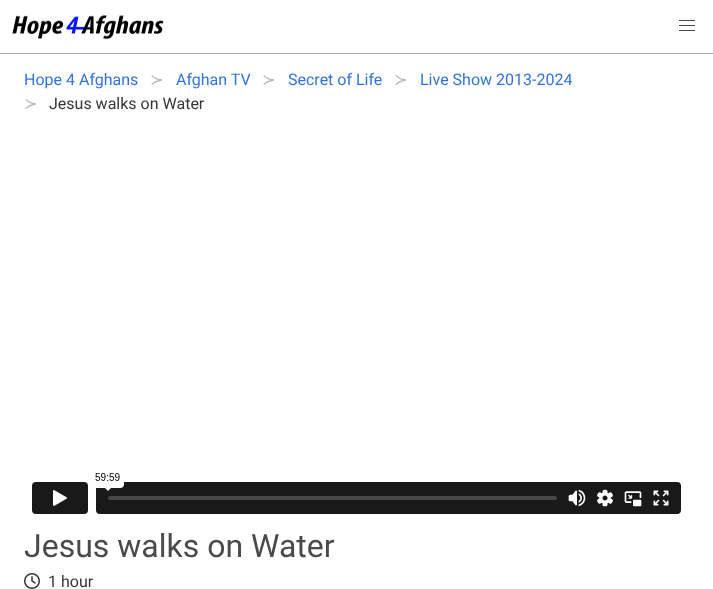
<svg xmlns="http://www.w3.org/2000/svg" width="713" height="589">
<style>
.a{font:16px Roboto;fill:#3273dc}
.b{font:16px DejaVu Sans;fill:#b5b5b5}
.c{font:16px Roboto;fill:#363636}
.d{font:32px Roboto;fill:#4a4a4a}
</style>
<rect width="100%" height="100%" fill="#fff"/>
<path fill="#aaa" d="M0 53h713v1H0z"/>
<image href="1.png" x="12" y="15" width="152" height="25"/>
<path fill="#4a4a4a" d="M679 20h16v1H679z"/>
<path fill="#4a4a4a" d="M679 25h16v1H679z"/>
<path fill="#4a4a4a" d="M679 30h16v1H679z"/>
<image href="2.png" x="32" y="473" width="649" height="41"/>
<image href="3.png" x="24" y="573" width="16" height="16"/>
<text class="a" x="24" y="85">Hope 4 Afghans</text>
<text class="b" x="150" y="85">≻</text>
<text class="a" x="176" y="85">Afghan TV</text>
<text class="b" x="262" y="85">≻</text>
<text class="a" x="288" y="85">Secret of Life</text>
<text class="b" x="394" y="85">≻</text>
<text class="a" x="420" y="85">Live Show 2013-2024</text>
<text class="b" x="24" y="109">≻</text>
<text class="c" x="49" y="109">Jesus walks on Water</text>
<text class="d" x="24" y="557">Jesus walks on Water</text>
<text class="c" x="48" y="587">1 hour</text>
</svg>
